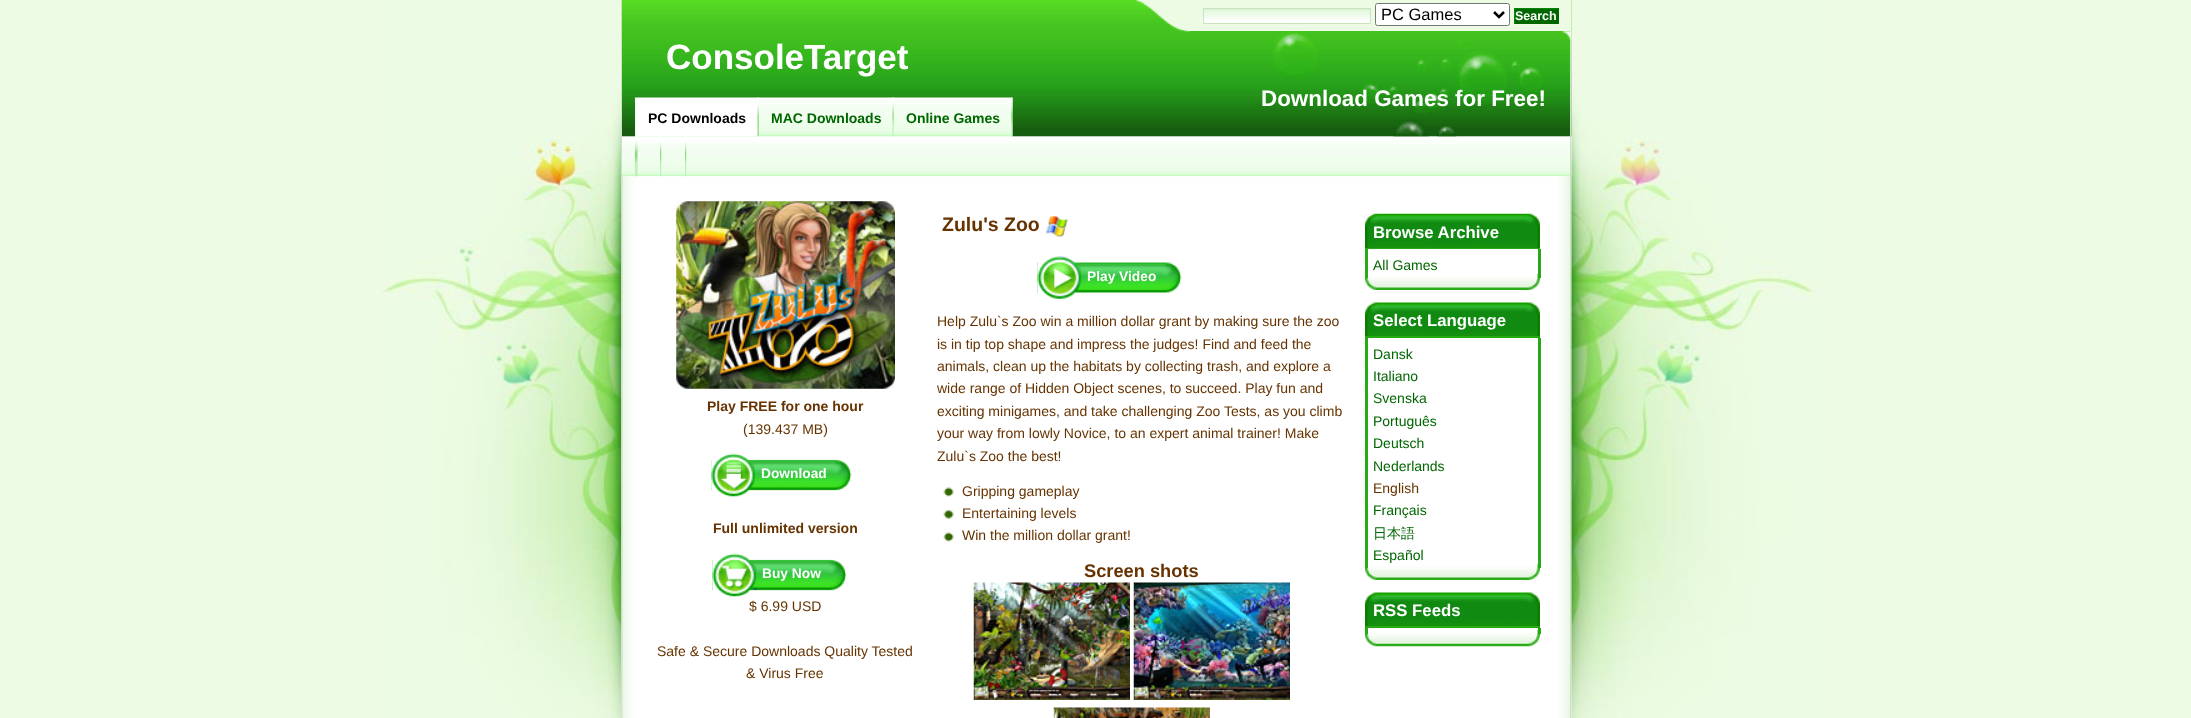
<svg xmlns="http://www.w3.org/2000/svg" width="2191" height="718">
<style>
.a{font:16.5px Liberation Sans;fill:#000}
.b{font:bold 12.5px Liberation Sans;fill:#fff}
.c{font:bold 35px Liberation Sans;fill:#fff}
.d{font:bold 22.4px Liberation Sans;fill:#fff}
.e{font:bold 14px Liberation Sans;fill:#000}
.f{font:bold 14px Liberation Sans;fill:#060}
.g{font:bold 14px Liberation Sans;fill:#630}
.h{font:14px Liberation Sans;fill:#630}
.i{font:bold 13.75px Liberation Sans;fill:#fff}
.j{font:bold 19.5px Liberation Sans;fill:#630}
.k{font:bold 18.25px Liberation Sans;fill:#630}
.l{font:bold 16.75px Liberation Sans;fill:#fff}
.m{font:14px Liberation Sans;fill:#060}
.n{font:500 14px WenQuanYi Zen Hei;fill:#060}
</style>
<rect width="100%" height="100%" fill="#edfbe4"/>
<image href="1.png" x="381" y="0" width="1440" height="718"/>
<image href="2.png" x="621" y="0" width="951" height="718"/>
<image href="3.png" x="621" y="0" width="951" height="177"/>
<path fill="#c9e3be" d="M1570 31h1v145H1570z"/>
<path fill="#c9e3be" d="M621 0h1v176H621z"/>
<image href="4.png" x="1135" y="0" width="55" height="32"/>
<path fill="#edfbe4" d="M1190 0h381v31H1190z"/>
<image href="5.png" x="1202" y="8" width="170" height="16"/>
<path fill="none" stroke="#c9e3be" d="M1203.5 8.5h167v15H1203.5z"/>
<rect fill="#fff" stroke="#767676" x="1375.5" y="3.5" width="134" height="22" rx="2"/>
<path fill="none" stroke="#000" stroke-width="2.5" d="M1494 12l5 5l5-5"/>
<path fill="#060" d="M1515 9h43v15H1515z"/>
<path fill="#080" d="M1514 8h45v1H1514z"/>
<path fill="#060" d="M1558 8h1v16H1558z"/>
<path fill="#080" d="M1514 8h1v16H1514z"/>
<image href="6.png" x="1273" y="31" width="299" height="106"/>
<image href="7.png" x="635" y="97" width="378" height="40"/>
<path fill="#fff" d="M636 100h123v36H636z"/>
<image href="8.png" x="757" y="97" width="2" height="40"/>
<image href="9.png" x="892" y="97" width="2" height="40"/>
<image href="10.png" x="1011" y="97" width="2" height="40"/>
<image href="11.png" x="635" y="136" width="3" height="41"/>
<image href="12.png" x="660" y="136" width="2" height="41"/>
<image href="12.png" x="685" y="136" width="2" height="41"/>
<image href="13.png" x="676" y="201" width="219" height="188"/>
<image href="14.png" x="711" y="459" width="141" height="32"/>
<image href="15.png" x="711" y="453" width="44" height="44"/>
<image href="16.png" x="712" y="559" width="135" height="32"/>
<image href="17.png" x="712" y="553" width="45" height="44"/>
<image href="18.png" x="1046" y="215" width="22" height="23"/>
<image href="19.png" x="1037" y="262" width="145" height="31"/>
<image href="20.png" x="1037" y="256" width="45" height="43"/>
<image href="21.png" x="943" y="487" width="11" height="10"/>
<image href="22.png" x="943" y="510" width="11" height="9"/>
<image href="21.png" x="943" y="532" width="11" height="10"/>
<image href="23.png" x="973" y="582" width="157" height="118"/>
<image href="24.png" x="1133" y="582" width="157" height="118"/>
<image href="25.png" x="1053" y="707" width="157" height="11"/>
<image href="26.png" x="1365" y="213" width="175" height="35"/>
<path fill="#28a918" d="M1365 248h175v1H1365z"/>
<image href="27.png" x="1365" y="273" width="175" height="17"/>
<path fill="#28a918" d="M1538 249h3v29H1538z"/>
<path fill="#28a918" d="M1365 249h3v29H1365z"/>
<path fill="#2fc107" d="M1365 337h175v1H1365z"/>
<image href="28.png" x="1365" y="302" width="175" height="36"/>
<path fill="#28a918" d="M1365 336h175v1H1365z"/>
<image href="27.png" x="1365" y="563" width="175" height="17"/>
<path fill="#28a918" d="M1538 338h3v230H1538z"/>
<path fill="#28a918" d="M1365 338h3v230H1365z"/>
<path fill="#2fc107" d="M1365 627h175v1H1365z"/>
<image href="28.png" x="1365" y="592" width="175" height="36"/>
<path fill="#28a918" d="M1365 626h175v1H1365z"/>
<image href="29.png" x="1365" y="630" width="175" height="17"/>
<path fill="#28a918" d="M1538 628h3v6H1538z"/>
<path fill="#28a918" d="M1365 628h3v6H1365z"/>
<text class="a" x="1381" y="20">PC Games</text>
<text class="b" x="1515" y="20">Search</text>
<text class="c" x="666" y="69">ConsoleTarget</text>
<text class="d" x="1261" y="106">Download Games for Free!</text>
<text class="e" x="648" y="123">PC Downloads</text>
<text class="f" x="771" y="123">MAC Downloads</text>
<text class="f" x="906" y="123">Online Games</text>
<text class="g" x="707" y="411">Play FREE for one hour</text>
<text class="h" x="743" y="434">(139.437 MB)</text>
<text class="i" x="761" y="478">Download</text>
<text class="g" x="713" y="533">Full unlimited version</text>
<text class="i" x="762" y="578">Buy Now</text>
<text class="h" x="749" y="611">$ 6.99 USD</text>
<text class="h" x="657" y="656">Safe &amp; Secure Downloads Quality Tested</text>
<text class="h" x="746" y="678">&amp; Virus Free</text>
<text class="j" x="942" y="231">Zulu's Zoo</text>
<text class="i" x="1087" y="281">Play Video</text>
<text class="h" x="937" y="326">Help Zulu`s Zoo win a million dollar grant by making sure the zoo</text>
<text class="h" x="937" y="349">is in tip top shape and impress the judges! Find and feed the</text>
<text class="h" x="937" y="371">animals, clean up the habitats by collecting trash, and explore a</text>
<text class="h" x="937" y="393">wide range of Hidden Object scenes, to succeed. Play fun and</text>
<text class="h" x="937" y="416">exciting minigames, and take challenging Zoo Tests, as you climb</text>
<text class="h" x="937" y="438">your way from lowly Novice, to an expert animal trainer! Make</text>
<text class="h" x="937" y="461">Zulu`s Zoo the best!</text>
<text class="h" x="962" y="496">Gripping gameplay</text>
<text class="h" x="962" y="518">Entertaining levels</text>
<text class="h" x="962" y="540">Win the million dollar grant!</text>
<text class="k" x="1084" y="577">Screen shots</text>
<text class="l" x="1373" y="238">Browse Archive</text>
<text class="m" x="1373" y="270">All Games</text>
<text class="l" x="1373" y="326">Select Language</text>
<text class="m" x="1373" y="359">Dansk</text>
<text class="m" x="1373" y="381">Italiano</text>
<text class="m" x="1373" y="403">Svenska</text>
<text class="m" x="1373" y="426">Português</text>
<text class="m" x="1373" y="448">Deutsch</text>
<text class="m" x="1373" y="471">Nederlands</text>
<text class="h" x="1373" y="493">English</text>
<text class="m" x="1373" y="515">Français</text>
<text class="n" x="1373" y="538">日本語</text>
<text class="m" x="1373" y="560">Español</text>
<text class="l" x="1373" y="616">RSS Feeds</text>
</svg>
